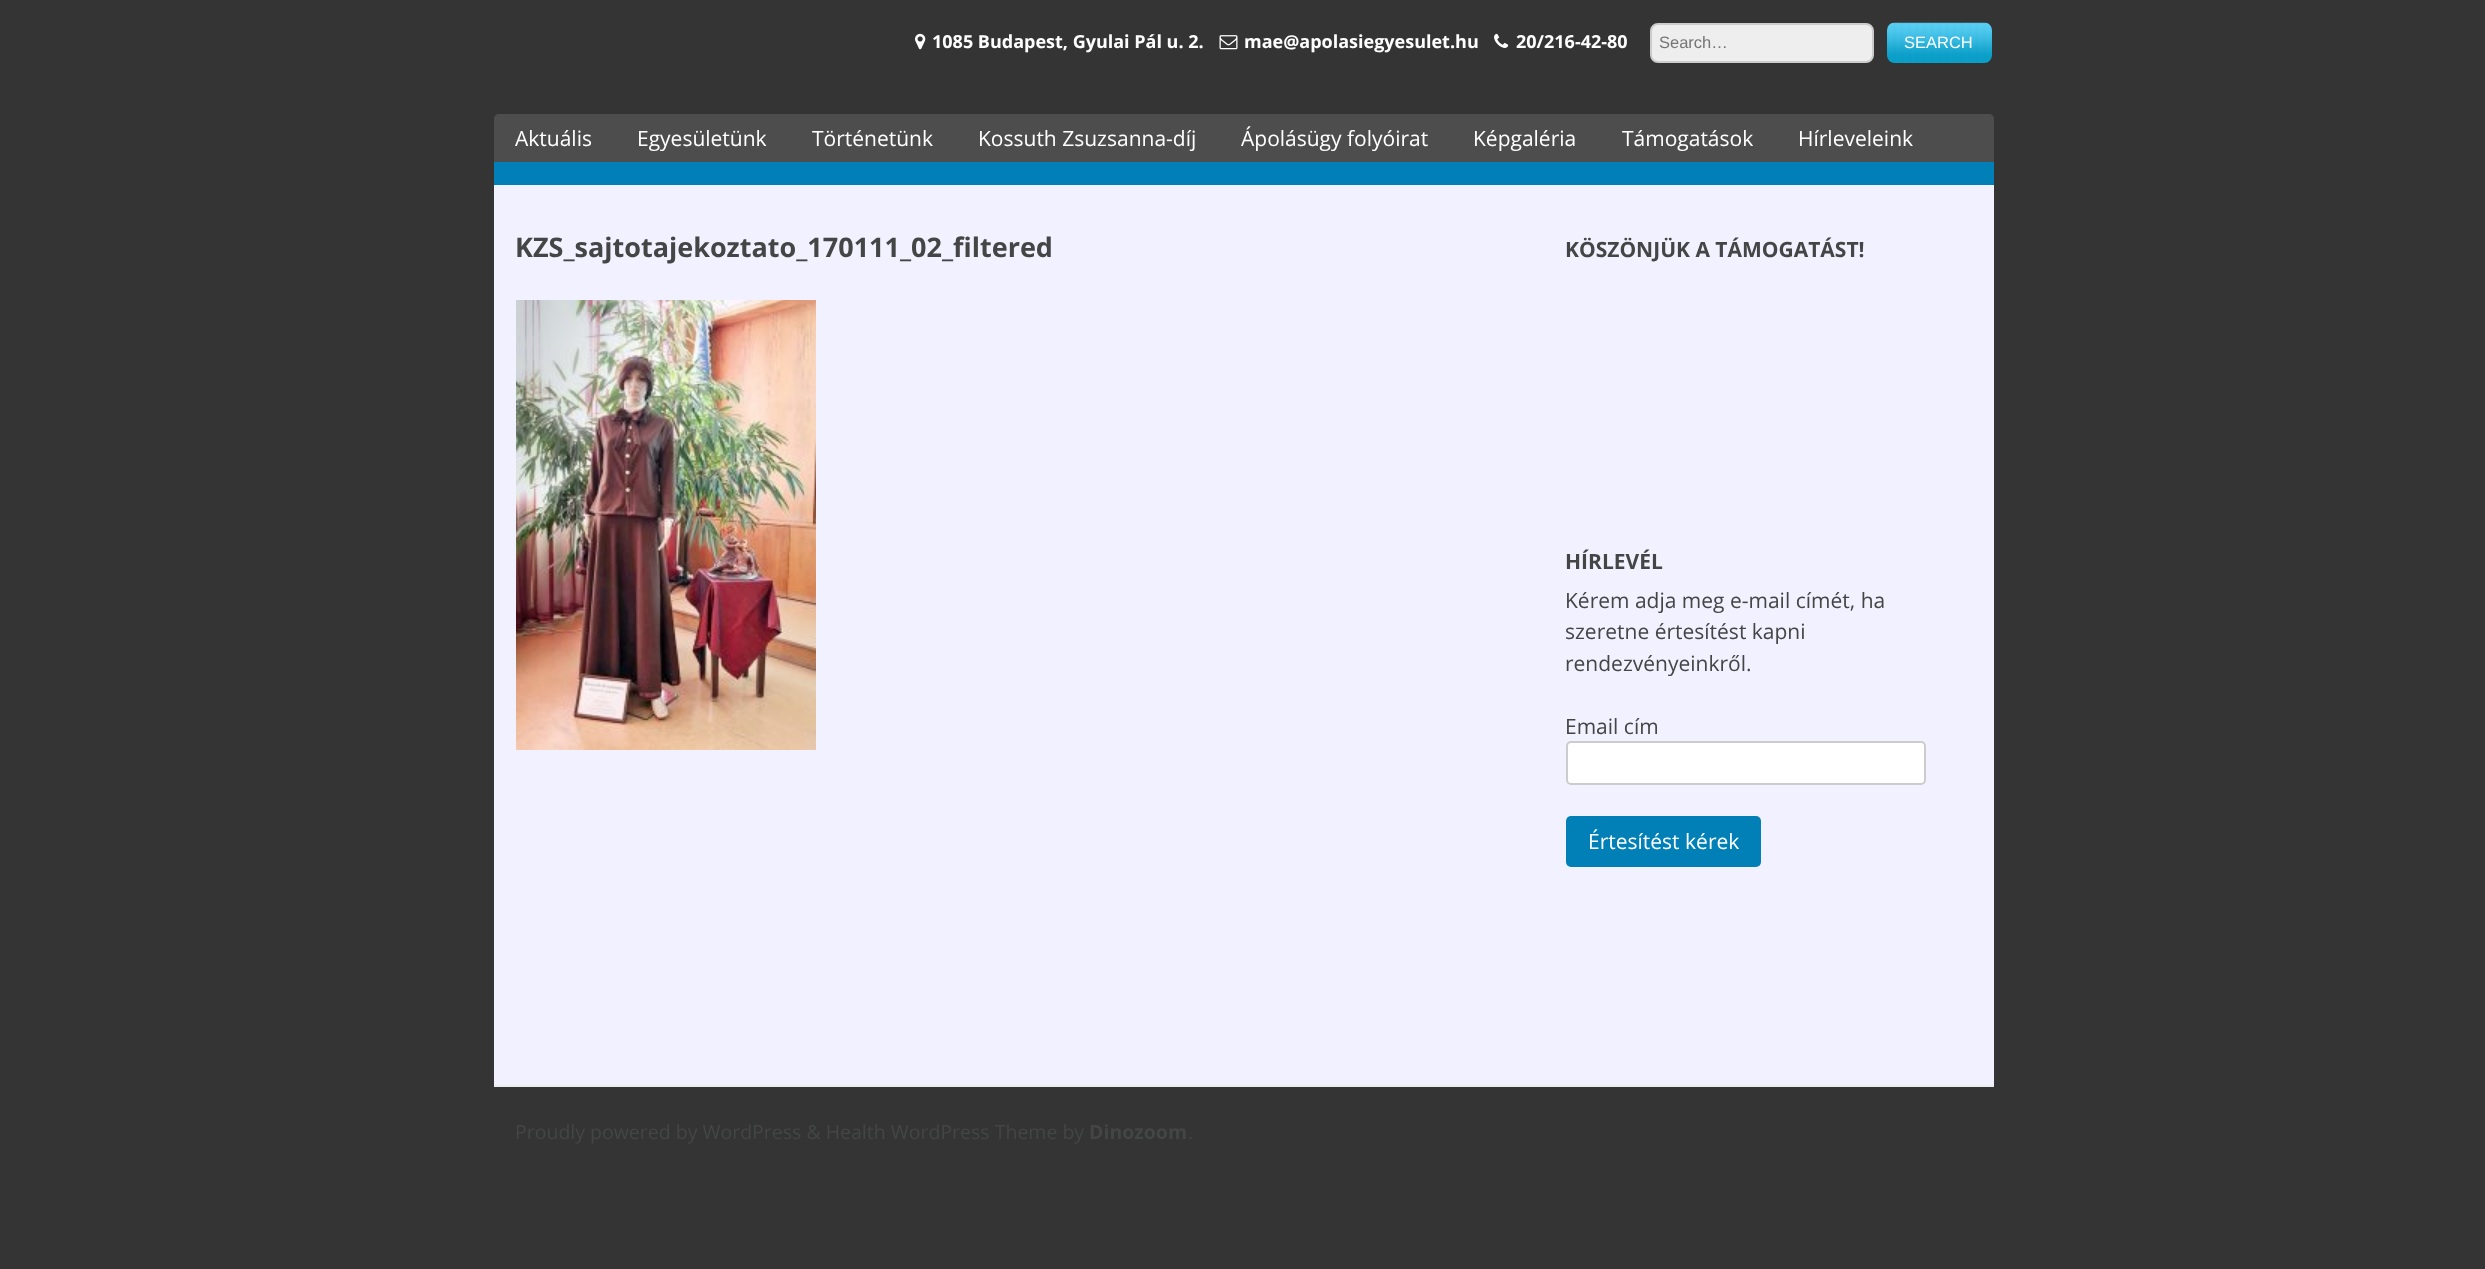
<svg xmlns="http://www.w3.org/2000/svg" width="2485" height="1269">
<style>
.a{font:bold 18px Open Sans;fill:#fff}
.b{font:16.5px Liberation Sans;fill:#757575}
.c{font:16.5px Liberation Sans;fill:#fff}
.d{font:21px Open Sans;fill:#fff}
.e{font:bold 27px Open Sans;fill:#444545}
.f{font:bold 21px Open Sans;fill:#444545}
.g{font:21px Open Sans;fill:#444545}
.h{font:19.5px Open Sans;fill:#444545}
.i{font:bold 19.5px Open Sans;fill:#444545}
</style>
<rect width="100%" height="100%" fill="#343434"/>
<image href="1.png" x="915" y="33" width="11" height="17"/>
<image href="2.png" x="1219" y="35" width="19" height="15"/>
<image href="3.png" x="1494" y="33" width="15" height="15"/>
<rect fill="#eee" stroke="#ccc" stroke-width="2" x="1651" y="24" width="222" height="38" rx="7"/>
<image href="4.png" x="1887" y="22" width="105" height="41"/>
<path fill="#4d4d4d" d="M499 114h1490c3 0 5 2 5 5v66h-1500v-66c0-3 2-5 5-5z"/>
<path fill="#0080b7" d="M494 162h1500v23H494z"/>
<path fill="#f2f1ff" d="M494 185h1500v900H494z"/>
<image href="5.png" x="516" y="300" width="300" height="450"/>
<rect fill="#fff" stroke="#ccc" stroke-width="2" x="1567" y="742" width="358" height="42" rx="4"/>
<rect fill="#0080b7" x="1566" y="816" width="195" height="51" rx="5"/>
<path fill="#ebeded" d="M494 1085h1500v2H494z"/>
<text class="a" x="932" y="48">1085 Budapest, Gyulai Pál u. 2.</text>
<text class="a" x="1244" y="48">mae@apolasiegyesulet.hu</text>
<text class="a" x="1516" y="48">20/216-42-80</text>
<text class="b" x="1659" y="48">Search…</text>
<text class="c" x="1904" y="48">SEARCH</text>
<text class="d" x="515" y="146">Aktuális</text>
<text class="d" x="637" y="146">Egyesületünk</text>
<text class="d" x="812" y="146">Történetünk</text>
<text class="d" x="978" y="146">Kossuth Zsuzsanna-díj</text>
<text class="d" x="1241" y="146">Ápolásügy folyóirat</text>
<text class="d" x="1473" y="146">Képgaléria</text>
<text class="d" x="1622" y="146">Támogatások</text>
<text class="d" x="1798" y="146">Hírleveleink</text>
<text class="e" x="515" y="257">KZS_sajtotajekoztato_170111_02_filtered</text>
<text class="f" x="1565" y="257">KÖSZÖNJÜK A TÁMOGATÁST!</text>
<text class="f" x="1565" y="569">HÍRLEVÉL</text>
<text class="g" x="1565" y="608">Kérem adja meg e-mail címét, ha</text>
<text class="g" x="1565" y="639">szeretne értesítést kapni</text>
<text class="g" x="1565" y="671">rendezvényeinkről.</text>
<text class="g" x="1565" y="734">Email cím</text>
<text class="d" x="1588" y="849">Értesítést kérek</text>
<text class="h" x="515" y="1139">Proudly powered by WordPress &amp; Health WordPress Theme by</text>
<text class="i" x="1089" y="1139">Dinozoom</text>
<text class="h" x="1188" y="1139">.</text>
</svg>
